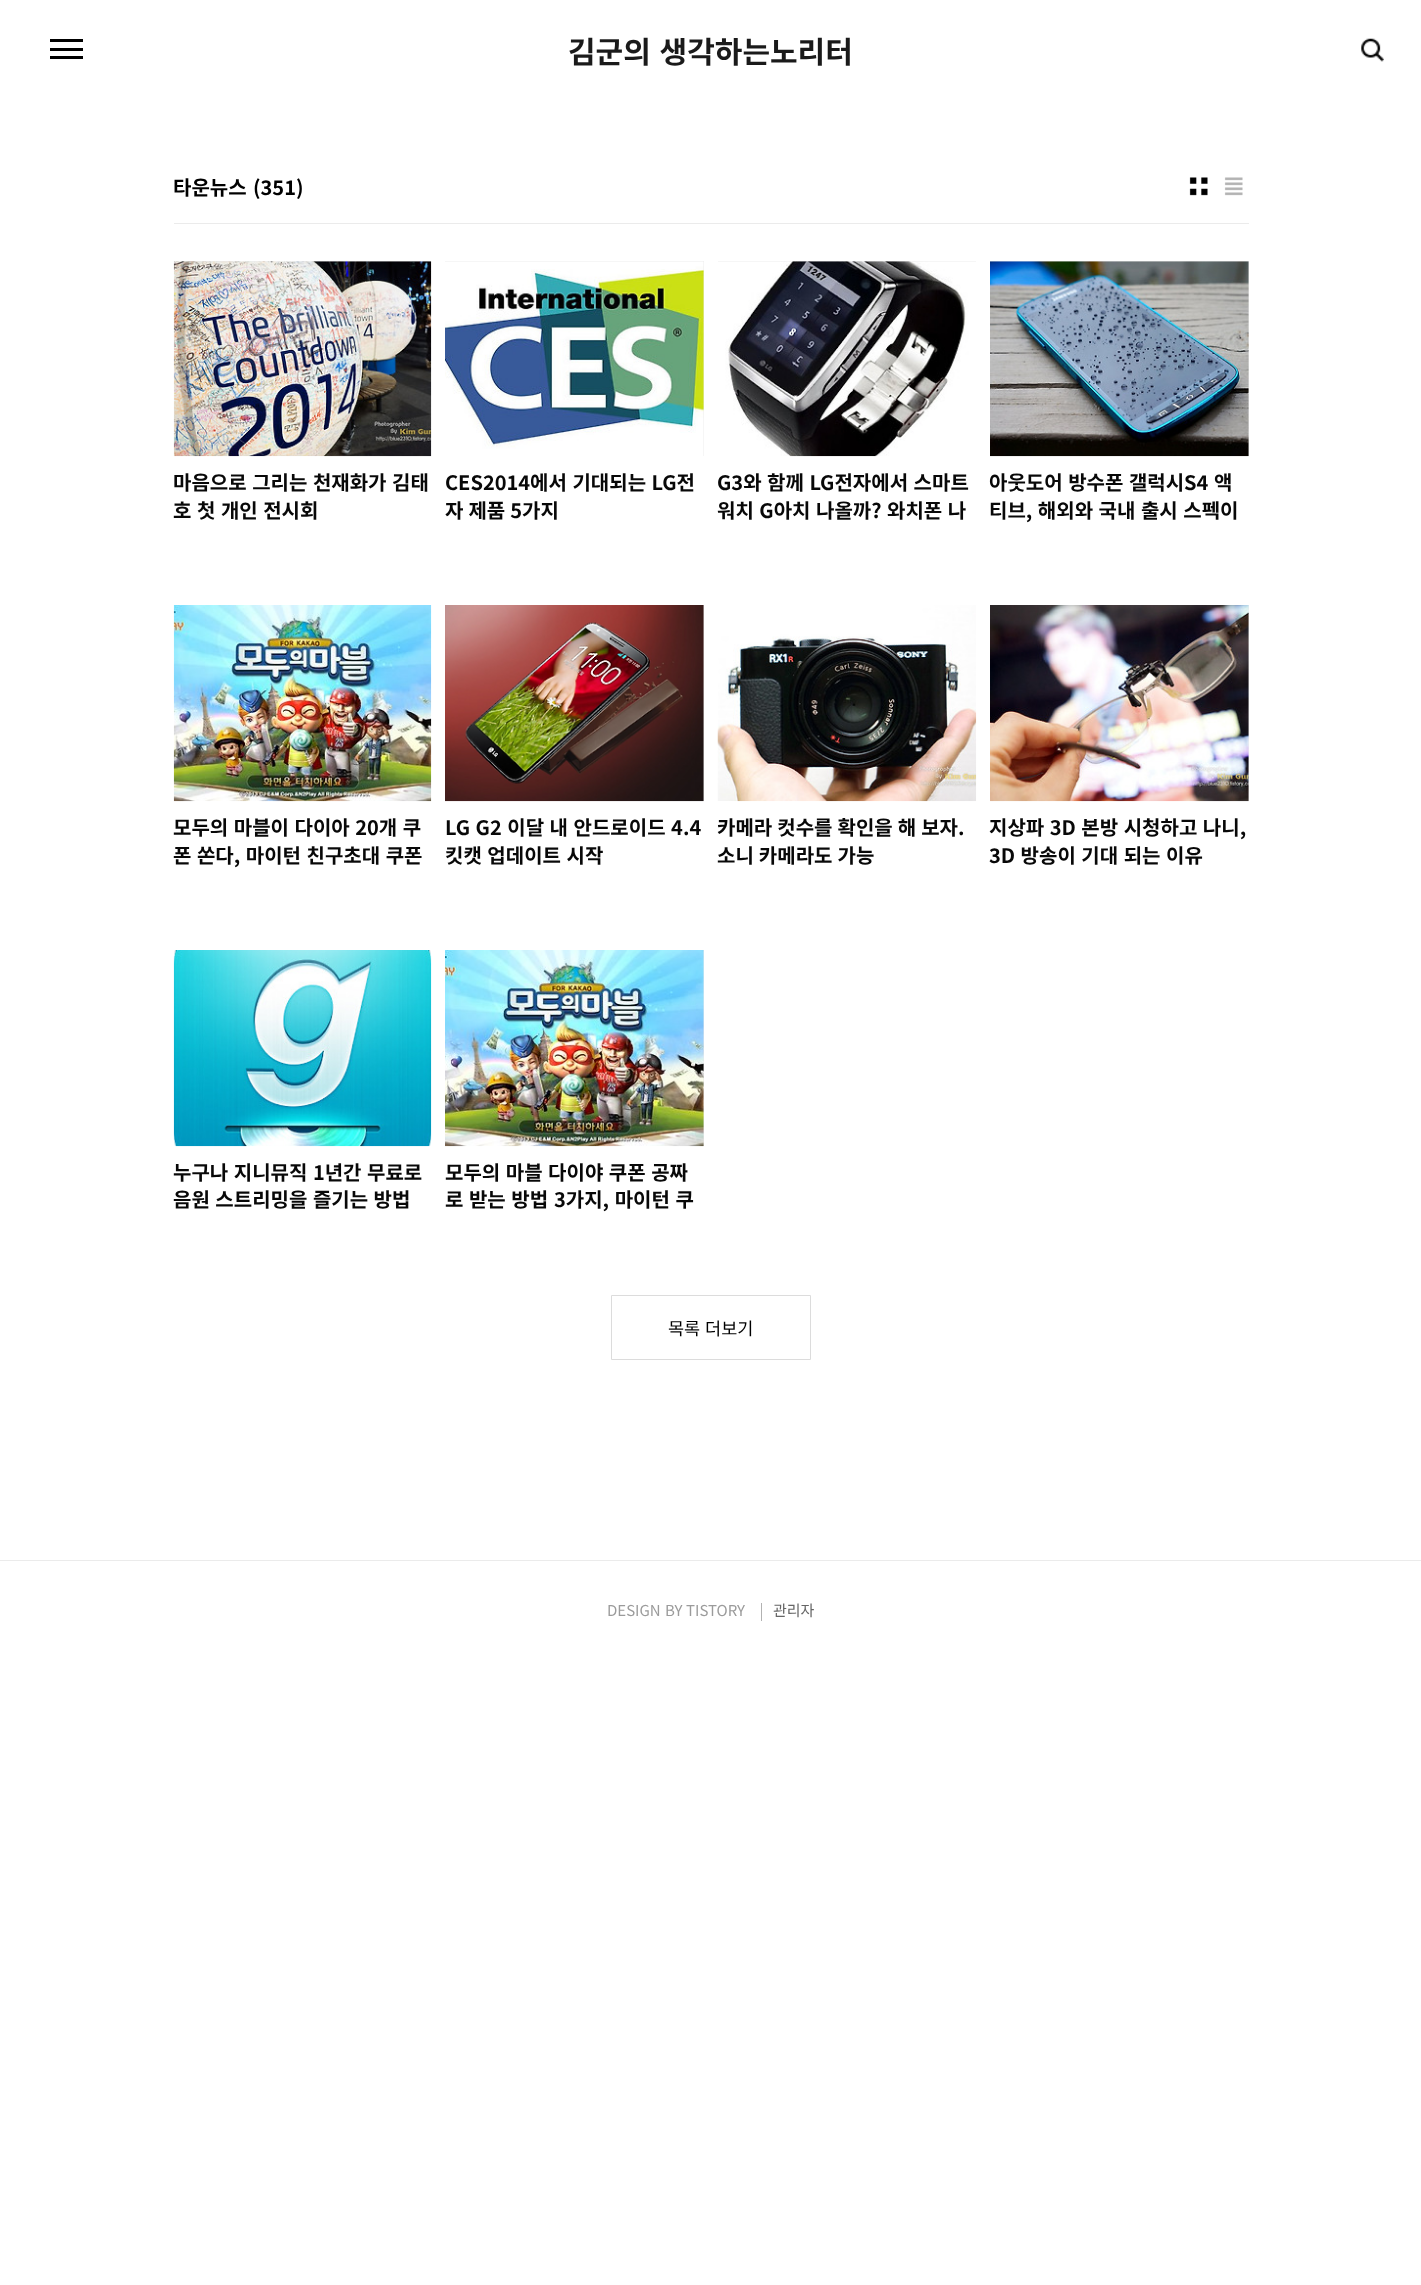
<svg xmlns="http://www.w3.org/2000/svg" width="1421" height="2285">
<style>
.a{font:bold 30px Noto Sans KR;fill:#1a1a1a}
.b{font:bold 20px Noto Sans KR;fill:#000}
.c{font:bold 20px Noto Sans KR;fill:#080808}
.d{font:17.5px Noto Sans KR;fill:#000}
.e{font:15px Noto Sans KR;fill:#9b9b9b}
.f{font:15px Noto Sans KR;fill:#666}
</style>
<rect width="100%" height="100%" fill="#fff"/>
<path fill="#000" d="M50 39h33v3H50z"/>
<path fill="#000" d="M50 48h33v3H50z"/>
<path fill="#000" d="M50 56h33v3H50z"/>
<image href="1.png" x="1361" y="38" width="23" height="24"/>
<path fill="#ebebeb" d="M174 223h1075v1H174z"/>
<image href="2.png" x="1189" y="177" width="19" height="19"/>
<image href="3.png" x="1224" y="177" width="19" height="19"/>
<path fill="#ebebeb" d="M174 261h257v1H174z"/>
<image href="4.png" x="173" y="261" width="259" height="196"/>
<path fill="#ebebeb" d="M445 261h259v195H445z"/>
<image href="5.png" x="445" y="261" width="259" height="195"/>
<path fill="#ebebeb" d="M718 261h258v1H718z"/>
<image href="6.png" x="718" y="261" width="258" height="196"/>
<path fill="#ebebeb" d="M990 261h259v195H990z"/>
<image href="7.png" x="990" y="261" width="259" height="196"/>
<image href="8.png" x="173" y="605" width="259" height="197"/>
<path fill="#ebebeb" d="M703 605h1v196H703z"/>
<image href="9.png" x="445" y="605" width="259" height="197"/>
<image href="10.png" x="717" y="605" width="260" height="197"/>
<path fill="#ebebeb" d="M1248 605h1v196H1248z"/>
<image href="11.png" x="990" y="605" width="259" height="197"/>
<image href="12.png" x="173" y="950" width="259" height="197"/>
<path fill="#ebebeb" d="M703 950h1v196H703z"/>
<image href="13.png" x="445" y="950" width="259" height="197"/>
<path fill="none" stroke="#dcdcdc" d="M611.5 1295.5h199v64H611.5z"/>
<path fill="#ebebeb" d="M0 1560h1421v1H0z"/>
<path fill="#b2b2b2" d="M761 1603h1v18H761z"/>
<text class="a" x="568" y="63" word-spacing="2">김군의 생각하는노리터</text>
<text class="b" x="173" y="195">타운뉴스</text>
<text class="b" x="253" y="195">(351)</text>
<text class="c" x="173" y="490" word-spacing="1">마음으로 그리는 천재화가 김태</text>
<text class="c" x="173" y="518" word-spacing="1">호 첫 개인 전시회</text>
<text class="c" x="445" y="490" word-spacing="1">CES2014에서 기대되는 LG전</text>
<text class="c" x="445" y="518" word-spacing="0.5">자 제품 5가지</text>
<text class="c" x="717" y="490" word-spacing="1">G3와 함께 LG전자에서 스마트</text>
<text class="c" x="717" y="518" word-spacing="1">워치 G아치 나올까? 와치폰 나</text>
<text class="c" x="989" y="490" word-spacing="1">아웃도어 방수폰 갤럭시S4 액</text>
<text class="c" x="989" y="518" word-spacing="1">티브, 해외와 국내 출시 스펙이</text>
<text class="c" x="173" y="835" word-spacing="1">모두의 마블이 다이아 20개 쿠</text>
<text class="c" x="173" y="863" word-spacing="1">폰 쏜다, 마이턴 친구초대 쿠폰</text>
<text class="c" x="445" y="835" word-spacing="1">LG G2 이달 내 안드로이드 4.4</text>
<text class="c" x="445" y="863" word-spacing="1">킷캣 업데이트 시작</text>
<text class="c" x="717" y="835" word-spacing="0.5">카메라 컷수를 확인을 해 보자.</text>
<text class="c" x="717" y="863" word-spacing="0.5">소니 카메라도 가능</text>
<text class="c" x="989" y="835" word-spacing="1">지상파 3D 본방 시청하고 나니,</text>
<text class="c" x="989" y="863" word-spacing="1">3D 방송이 기대 되는 이유</text>
<text class="c" x="173" y="1180" word-spacing="1">누구나 지니뮤직 1년간 무료로</text>
<text class="c" x="173" y="1207" word-spacing="1">음원 스트리밍을 즐기는 방법</text>
<text class="c" x="445" y="1180" word-spacing="1">모두의 마블 다이야 쿠폰 공짜</text>
<text class="c" x="445" y="1207" word-spacing="1">로 받는 방법</text>
<text class="c" x="554" y="1207" word-spacing="1">3가지, 마이턴 쿠</text>
<text class="d" x="668" y="1335" word-spacing="1">목록 더보기</text>
<text class="e" x="607" y="1616" word-spacing="1">DESIGN BY</text>
<text class="e" x="686" y="1616">TISTORY</text>
<text class="f" x="773" y="1616">관리자</text>
</svg>
